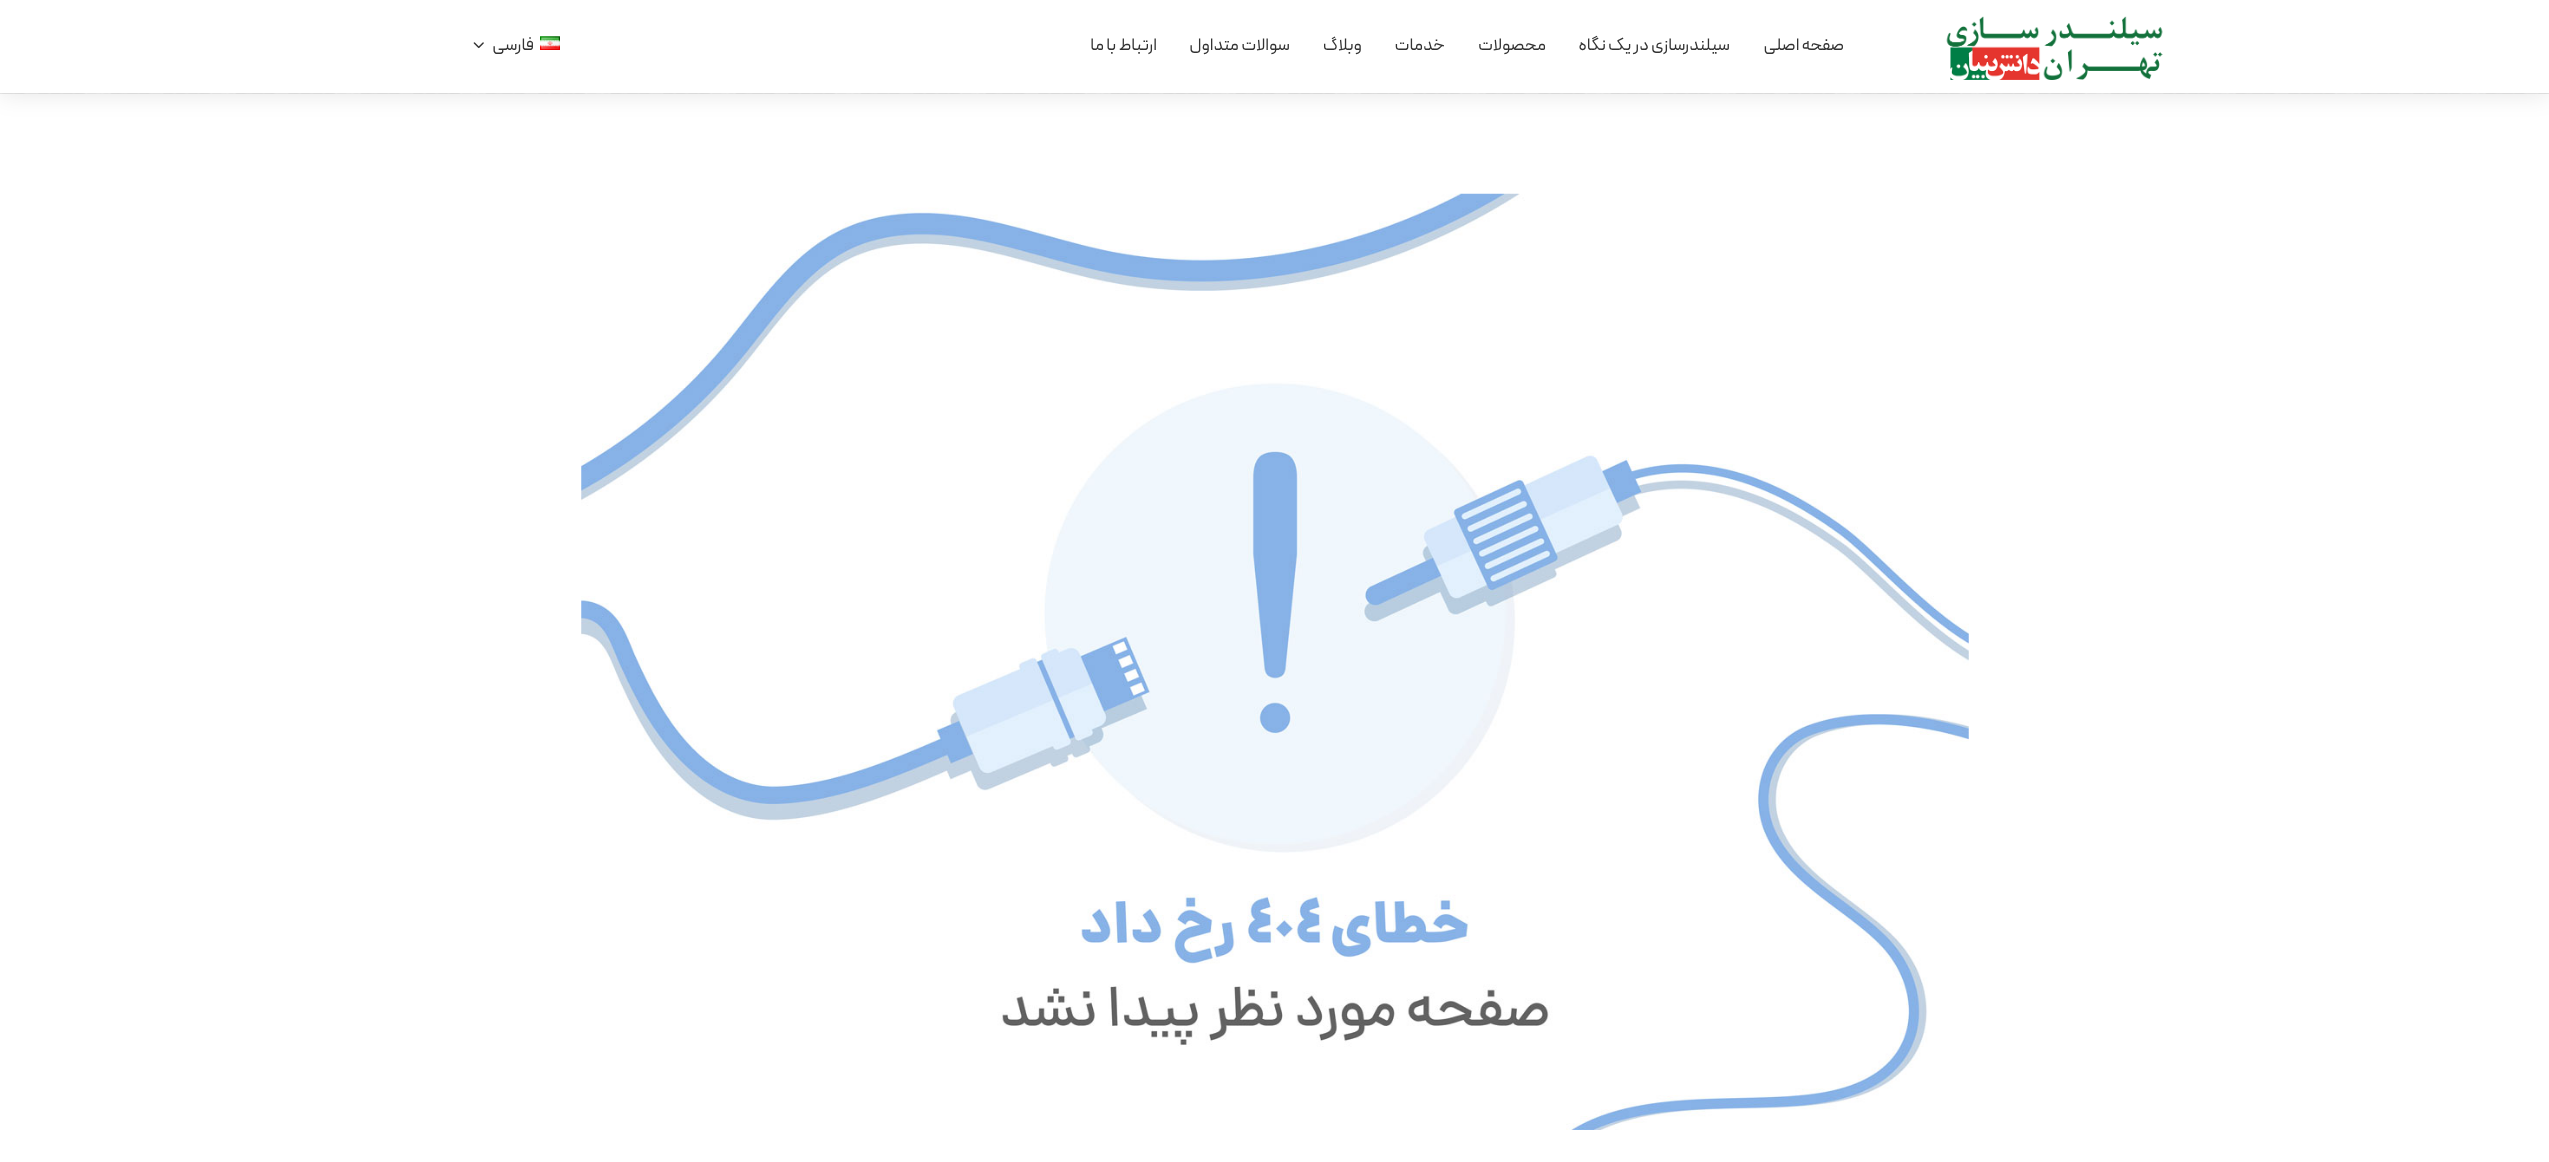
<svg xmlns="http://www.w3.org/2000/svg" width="2549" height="1162">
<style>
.a{font:17.5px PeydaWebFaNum;direction:rtl;fill:#333}
</style>
<rect width="100%" height="100%" fill="#fff"/>
<image href="1.png" x="0" y="93" width="2549" height="1"/>
<path fill="#0000001a" filter="blur(12.5px)" d="M0 1h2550v93H0z"/>
<path fill="#fff" d="M0 0h2549v93H0z"/>
<image href="2.png" x="1946" y="16" width="217" height="64"/>
<image href="3.png" x="540" y="36" width="20" height="14"/>
<image href="4.png" x="473" y="42" width="11" height="7"/>
<image href="5.png" x="581" y="193" width="1388" height="937"/>
<text class="a" x="1844" y="50">صفحه اصلی</text>
<text class="a" x="1730" y="50">سیلندرسازی در یک نگاه</text>
<text class="a" x="1546" y="50">محصولات</text>
<text class="a" x="1445" y="50">خدمات</text>
<text class="a" x="1362" y="50">وبلاگ</text>
<text class="a" x="1290" y="50">سوالات متداول</text>
<text class="a" x="1157" y="50">ارتباط با ما</text>
<text class="a" x="534" y="50">فارسی</text>
</svg>
